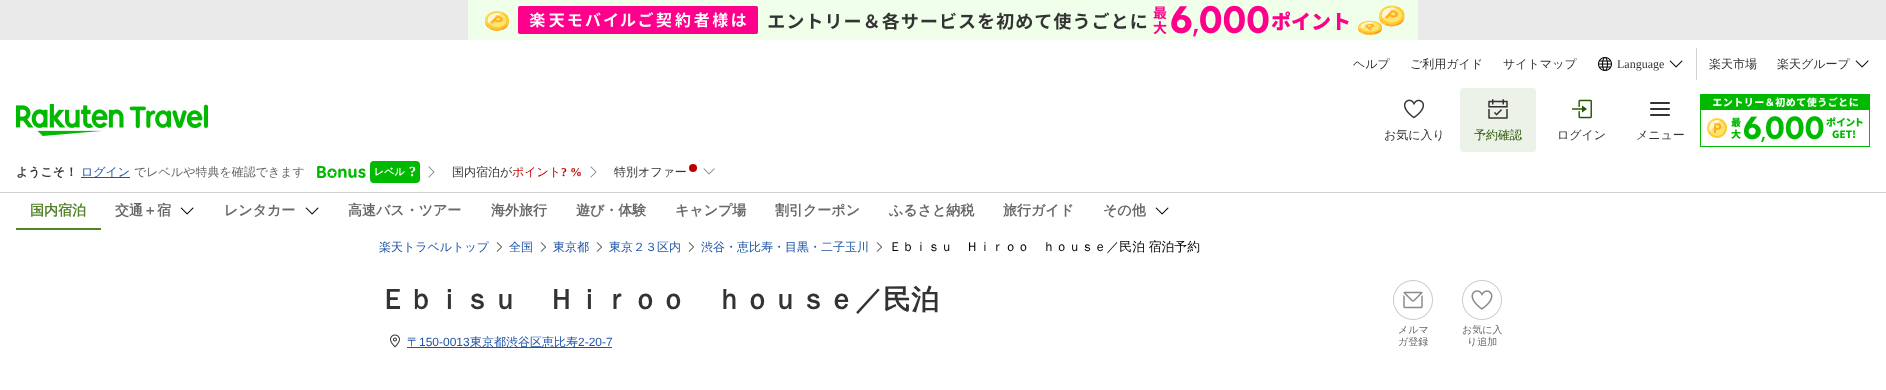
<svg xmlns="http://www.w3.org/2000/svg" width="1886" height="390">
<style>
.a{font:500 12px WenQuanYi Zen Hei;fill:#333}
.b{font:12px Liberation Serif;fill:#333}
.c{font:500 12px WenQuanYi Zen Hei;fill:#255500}
.d{font:bold 12px WenQuanYi Zen Hei;fill:#333}
.e{font:500 12px WenQuanYi Zen Hei;fill:#1d54a7}
.f{font:500 12px WenQuanYi Zen Hei;fill:#686868}
.g{font:bold 10px WenQuanYi Zen Hei;fill:#fff}
.h{font:bold 14px Liberation Serif;fill:#fff}
.i{font:500 12px WenQuanYi Zen Hei;fill:#bf0000}
.j{font:bold 12px Liberation Serif;fill:#bf0000}
.k{font:bold 14px WenQuanYi Zen Hei;fill:#54822b}
.l{font:bold 14px WenQuanYi Zen Hei;fill:#686868}
.m{font:500 12.8px WenQuanYi Zen Hei;fill:#000}
.n{font:bold 28px WenQuanYi Zen Hei;fill:#333}
.o{font:12px Liberation Sans;fill:#1d54a7}
.p{font:500 10px WenQuanYi Zen Hei;fill:#686868}
</style>
<rect width="100%" height="100%" fill="#fff"/>
<path fill="#eaeaea" d="M0 0h1886v40H0z"/>
<image href="1.png" x="468" y="0" width="950" height="40"/>
<image href="2.png" x="1598" y="57" width="14" height="14"/>
<image href="3.png" x="1669" y="60" width="14" height="8"/>
<path fill="#d1d1d1" d="M1696 48h1v32H1696z"/>
<image href="3.png" x="1855" y="60" width="14" height="8"/>
<image href="4.png" x="16" y="104" width="192" height="32"/>
<image href="5.png" x="1403" y="99" width="22" height="20"/>
<rect fill="#edf2e9" x="1460" y="88" width="76" height="64" rx="4"/>
<image href="6.png" x="1488" y="99" width="20" height="20"/>
<image href="7.png" x="1572" y="99" width="20" height="20"/>
<image href="8.png" x="1650" y="102" width="20" height="14"/>
<image href="9.png" x="1700" y="94" width="170" height="53"/>
<path fill="#1d54a7" d="M81 177h49v1H81z"/>
<image href="10.png" x="317" y="166" width="49" height="12"/>
<rect fill="#00b900" x="370" y="161" width="50" height="22" rx="4"/>
<image href="11.png" x="428" y="166" width="7" height="12"/>
<image href="11.png" x="590" y="166" width="7" height="12"/>
<circle fill="#bf0000" cx="693" cy="168" r="4"/>
<image href="12.png" x="703" y="168" width="12" height="7"/>
<path fill="#d1d1d1" d="M0 192h1886v1H0z"/>
<path fill="#54822b" d="M16 228h85v2H16z"/>
<image href="3.png" x="180" y="207" width="14" height="8"/>
<image href="3.png" x="305" y="207" width="14" height="8"/>
<image href="3.png" x="1155" y="207" width="14" height="8"/>
<image href="13.png" x="496" y="242" width="6" height="10"/>
<image href="13.png" x="540" y="242" width="6" height="10"/>
<image href="13.png" x="596" y="242" width="6" height="10"/>
<image href="13.png" x="688" y="242" width="6" height="10"/>
<image href="13.png" x="876" y="242" width="6" height="10"/>
<image href="14.png" x="390" y="334" width="10" height="14"/>
<path fill="#1d54a7" d="M407 347h205v1H407z"/>
<image href="15.png" x="1393" y="280" width="40" height="40"/>
<image href="16.png" x="1462" y="280" width="40" height="40"/>
<text class="a" x="1353" y="68">ヘルプ</text>
<text class="a" x="1410" y="68">ご利用ガイド</text>
<text class="a" x="1503" y="68">サイトマップ</text>
<text class="b" x="1617" y="68">Language</text>
<text class="a" x="1709" y="68">楽天市場</text>
<text class="a" x="1777" y="68">楽天グループ</text>
<text class="a" x="1384" y="139">お気に入り</text>
<text class="c" x="1474" y="139">予約確認</text>
<text class="a" x="1557" y="139">ログイン</text>
<text class="a" x="1636" y="139">メニュー</text>
<text class="d" x="16" y="176">ようこそ！</text>
<text class="e" x="81" y="176">ログイン</text>
<text class="f" x="134" y="176">でレベルや特典を確認できます</text>
<text class="g" x="374" y="175">レベル</text>
<text class="h" x="409" y="176">?</text>
<text class="a" x="452" y="176">国内宿泊が</text>
<text class="i" x="512" y="176">ポイント</text>
<text class="j" x="561" y="176">? %</text>
<text class="a" x="614" y="176">特別オファー</text>
<text class="k" x="30" y="215">国内宿泊</text>
<text class="l" x="115" y="215">交通＋宿</text>
<text class="l" x="224" y="215">レンタカー</text>
<text class="l" x="348" y="215">高速バス・ツアー</text>
<text class="l" x="491" y="215">海外旅行</text>
<text class="l" x="576" y="215">遊び・体験</text>
<text class="l" x="675" y="215">キャンプ場</text>
<text class="l" x="775" y="215">割引クーポン</text>
<text class="l" x="889" y="215">ふるさと納税</text>
<text class="l" x="1003" y="215">旅行ガイド</text>
<text class="l" x="1103" y="215">その他</text>
<text class="e" x="379" y="251">楽天トラベルトップ</text>
<text class="e" x="509" y="251">全国</text>
<text class="e" x="553" y="251">東京都</text>
<text class="e" x="609" y="251">東京２３区内</text>
<text class="e" x="701" y="251">渋谷・恵比寿・目黒・二子玉川</text>
<text class="m" x="889" y="251">Ｅｂｉｓｕ　Ｈｉｒｏｏ　ｈｏｕｓｅ／民泊 宿泊予約</text>
<text class="n" x="379" y="309">Ｅｂｉｓｕ　Ｈｉｒｏｏ　ｈｏｕｓｅ／民泊</text>
<text class="e" x="407" y="346">〒</text>
<text class="o" x="419" y="346">150-0013</text>
<text class="e" x="470" y="346">東京都渋谷区恵比寿</text>
<text class="o" x="578" y="346">2-20-7</text>
<text class="p" x="1398" y="333">メルマ</text>
<text class="p" x="1398" y="345">ガ登録</text>
<text class="p" x="1462" y="333">お気に入</text>
<text class="p" x="1467" y="345">り追加</text>
</svg>
